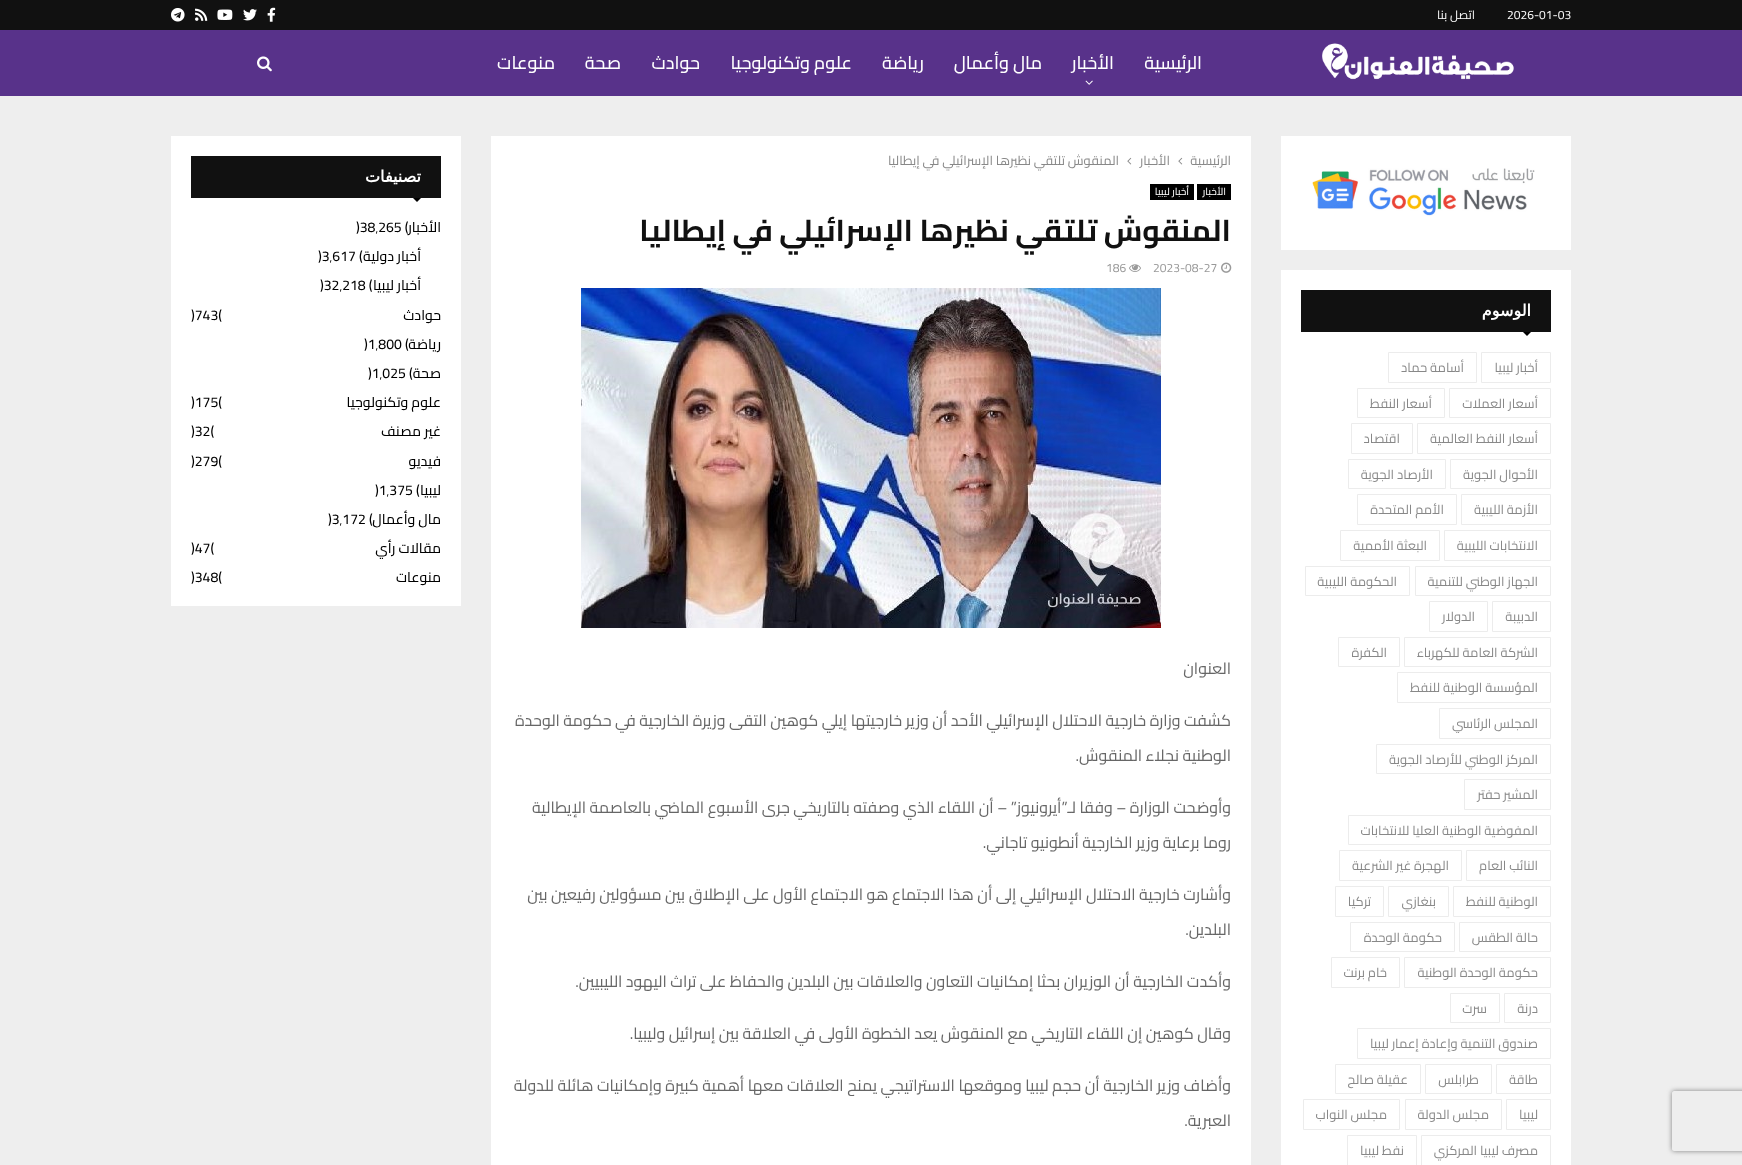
<svg xmlns="http://www.w3.org/2000/svg" width="1742" height="1165">
<style>
.a{font:12px Cairo;fill:#fff}
.b{font:12px Cairo;direction:rtl;fill:#fff}
.c{font:500 18px Cairo;direction:rtl;fill:#fff}
.d{font:bold 16px DejaVu Sans;direction:rtl;fill:#fff}
.e{font:13px Cairo;direction:rtl;fill:#888}
.f{font:500 10px Cairo;direction:rtl;fill:#fff}
.g{font:bold 30px Cairo;direction:rtl;fill:#111}
.h{font:12px Cairo;fill:#999}
.i{font:16px Cairo;direction:rtl;fill:#666}
.j{font:500 14px Cairo;fill:#000}
.k{font:500 14px Cairo;direction:rtl;fill:#000}
</style>
<defs>
<clipPath id="clip1"><path d="M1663 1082h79v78h-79zm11 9h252c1 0 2 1 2 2v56c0 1-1 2-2 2h-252c-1 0-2-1-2-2v-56c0-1 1-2 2-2z" clip-rule="evenodd"/></clipPath>
</defs>
<rect width="100%" height="100%" fill="#eee"/>
<g clip-path="url(#clip1)">
<rect fill="#808080" filter="blur(2.5px)" x="1672" y="1091" width="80" height="60" rx="2"/>
</g>
<path fill="#111" d="M0 0h1742v30H0z"/>
<image href="1.png" x="267" y="7" width="9" height="15"/>
<image href="2.png" x="243" y="9" width="14" height="12"/>
<image href="3.png" x="217" y="9" width="16" height="11"/>
<image href="4.png" x="195" y="8" width="13" height="13"/>
<image href="5.png" x="171" y="8" width="14" height="14"/>
<path fill="#58328a" d="M0 30h1742v66H0z"/>
<image href="6.png" x="1322" y="43" width="192" height="37"/>
<image href="7.png" x="1085" y="80" width="8" height="5"/>
<image href="8.png" x="257" y="56" width="15" height="16"/>
<path fill="#fff" d="M1281 136h290v114H1281z"/>
<image href="9.png" x="1312" y="168" width="223" height="48"/>
<path fill="#fff" d="M1281 270h290v895H1281z"/>
<path fill="#111" d="M1301 290h250v42H1301z"/>
<path fill="#000" d="M1523 332h8l-4 4z"/>
<path fill="none" stroke="#ececec" d="M1481.5 352.5h69v30H1481.5z"/>
<path fill="none" stroke="#ececec" d="M1388.5 352.5h88v30H1388.5z"/>
<path fill="none" stroke="#ececec" d="M1449.5 388.5h101v29H1449.5z"/>
<path fill="none" stroke="#ececec" d="M1357.5 388.5h87v29H1357.5z"/>
<path fill="none" stroke="#ececec" d="M1417.5 423.5h133v30H1417.5z"/>
<path fill="none" stroke="#ececec" d="M1351.5 423.5h61v30H1351.5z"/>
<path fill="none" stroke="#ececec" d="M1450.5 459.5h100v29H1450.5z"/>
<path fill="none" stroke="#ececec" d="M1348.5 459.5h97v29H1348.5z"/>
<path fill="none" stroke="#ececec" d="M1461.5 494.5h89v30H1461.5z"/>
<path fill="none" stroke="#ececec" d="M1357.5 494.5h99v30H1357.5z"/>
<path fill="none" stroke="#ececec" d="M1444.5 530.5h106v30H1444.5z"/>
<path fill="none" stroke="#ececec" d="M1340.5 530.5h99v30H1340.5z"/>
<path fill="none" stroke="#ececec" d="M1415.5 566.5h135v29H1415.5z"/>
<path fill="none" stroke="#ececec" d="M1305.5 566.5h104v29H1305.5z"/>
<path fill="none" stroke="#ececec" d="M1492.5 601.5h58v30H1492.5z"/>
<path fill="none" stroke="#ececec" d="M1429.5 601.5h58v30H1429.5z"/>
<path fill="none" stroke="#ececec" d="M1404.5 637.5h146v29H1404.5z"/>
<path fill="none" stroke="#ececec" d="M1338.5 637.5h61v29H1338.5z"/>
<path fill="none" stroke="#ececec" d="M1397.5 672.5h153v30H1397.5z"/>
<path fill="none" stroke="#ececec" d="M1439.5 708.5h111v30H1439.5z"/>
<path fill="none" stroke="#ececec" d="M1376.5 744.5h174v29H1376.5z"/>
<path fill="none" stroke="#ececec" d="M1464.5 779.5h86v30H1464.5z"/>
<path fill="none" stroke="#ececec" d="M1348.5 815.5h202v29H1348.5z"/>
<path fill="none" stroke="#ececec" d="M1466.5 850.5h84v30H1466.5z"/>
<path fill="none" stroke="#ececec" d="M1339.5 850.5h122v30H1339.5z"/>
<path fill="none" stroke="#ececec" d="M1453.5 886.5h97v30H1453.5z"/>
<path fill="none" stroke="#ececec" d="M1388.5 886.5h60v30H1388.5z"/>
<path fill="none" stroke="#ececec" d="M1335.5 886.5h48v30H1335.5z"/>
<path fill="none" stroke="#ececec" d="M1459.5 922.5h91v29H1459.5z"/>
<path fill="none" stroke="#ececec" d="M1350.5 922.5h104v29H1350.5z"/>
<path fill="none" stroke="#ececec" d="M1404.5 957.5h146v30H1404.5z"/>
<path fill="none" stroke="#ececec" d="M1331.5 957.5h68v30H1331.5z"/>
<path fill="none" stroke="#ececec" d="M1504.5 993.5h46v29H1504.5z"/>
<path fill="none" stroke="#ececec" d="M1450.5 993.5h49v29H1450.5z"/>
<path fill="none" stroke="#ececec" d="M1357.5 1028.5h193v30H1357.5z"/>
<path fill="none" stroke="#ececec" d="M1496.5 1064.5h54v29H1496.5z"/>
<path fill="none" stroke="#ececec" d="M1425.5 1064.5h66v29H1425.5z"/>
<path fill="none" stroke="#ececec" d="M1335.5 1064.5h85v29H1335.5z"/>
<path fill="none" stroke="#ececec" d="M1506.5 1099.5h44v30H1506.5z"/>
<path fill="none" stroke="#ececec" d="M1405.5 1099.5h96v30H1405.5z"/>
<path fill="none" stroke="#ececec" d="M1303.5 1099.5h96v30H1303.5z"/>
<path fill="none" stroke="#ececec" d="M1421.5 1135.5h129v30H1421.5z"/>
<path fill="none" stroke="#ececec" d="M1347.5 1135.5h69v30H1347.5z"/>
<path fill="#fff" d="M491 136h760v1029H491z"/>
<image href="10.png" x="1178" y="157" width="5" height="8"/>
<image href="10.png" x="1127" y="157" width="5" height="8"/>
<path fill="#000" d="M1197 184h34v16H1197z"/>
<path fill="#000" d="M1150 184h44v16H1150z"/>
<image href="11.png" x="1221" y="262" width="11" height="11"/>
<image href="12.png" x="1129" y="264" width="12" height="8"/>
<image href="13.png" x="581" y="288" width="580" height="340"/>
<path fill="#fff" d="M171 136h290v470H171z"/>
<path fill="#111" d="M191 156h250v42H191z"/>
<path fill="#000" d="M413 198h8l-4 4z"/>
<text class="a" x="1507" y="19">2026-01-03</text>
<text class="b" x="1475" y="19">اتصل بنا</text>
<text class="c" x="1202" y="69">الرئيسية</text>
<text class="c" x="1114" y="69">الأخبار</text>
<text class="c" x="1042" y="69">مال وأعمال</text>
<text class="c" x="924" y="69">رياضة</text>
<text class="c" x="852" y="69">علوم وتكنولوجيا</text>
<text class="c" x="700" y="69">حوادث</text>
<text class="c" x="621" y="69">صحة</text>
<text class="c" x="555" y="69">منوعات</text>
<text class="d" x="1531" y="316">الوسوم</text>
<text class="e" x="1538" y="372">أخبار ليبيا</text>
<text class="e" x="1464" y="372">أسامة حماد</text>
<text class="e" x="1538" y="408">أسعار العملات</text>
<text class="e" x="1432" y="408">أسعار النفط</text>
<text class="e" x="1538" y="443">أسعار النفط العالمية</text>
<text class="e" x="1400" y="443">اقتصاد</text>
<text class="e" x="1538" y="479">الأحوال الجوية</text>
<text class="e" x="1433" y="479">الأرصاد الجوية</text>
<text class="e" x="1538" y="514">الأزمة الليبية</text>
<text class="e" x="1444" y="514">الأمم المتحدة</text>
<text class="e" x="1538" y="550">الانتخابات الليبية</text>
<text class="e" x="1427" y="550">البعثة الأممية</text>
<text class="e" x="1538" y="586">الجهاز الوطني للتنمية</text>
<text class="e" x="1397" y="586">الحكومة الليبية</text>
<text class="e" x="1538" y="621">الدبيبة</text>
<text class="e" x="1475" y="621">الدولار</text>
<text class="e" x="1538" y="657">الشركة العامة للكهرباء</text>
<text class="e" x="1387" y="657">الكفرة</text>
<text class="e" x="1538" y="692">المؤسسة الوطنية للنفط</text>
<text class="e" x="1538" y="728">المجلس الرئاسي</text>
<text class="e" x="1538" y="764">المركز الوطني للأرصاد الجوية</text>
<text class="e" x="1538" y="799">المشير حفتر</text>
<text class="e" x="1538" y="835">المفوضية الوطنية العليا للانتخابات</text>
<text class="e" x="1538" y="870">النائب العام</text>
<text class="e" x="1449" y="870">الهجرة غير الشرعية</text>
<text class="e" x="1538" y="906">الوطنية للنفط</text>
<text class="e" x="1436" y="906">بنغازي</text>
<text class="e" x="1371" y="906">تركيا</text>
<text class="e" x="1538" y="942">حالة الطقس</text>
<text class="e" x="1442" y="942">حكومة الوحدة</text>
<text class="e" x="1538" y="977">حكومة الوحدة الوطنية</text>
<text class="e" x="1387" y="977">خام برنت</text>
<text class="e" x="1538" y="1013">درنة</text>
<text class="e" x="1487" y="1013">سرت</text>
<text class="e" x="1538" y="1048">صندوق التنمية وإعادة إعمار ليبيا</text>
<text class="e" x="1538" y="1084">طاقة</text>
<text class="e" x="1479" y="1084">طرابلس</text>
<text class="e" x="1408" y="1084">عقيلة صالح</text>
<text class="e" x="1538" y="1119">ليبيا</text>
<text class="e" x="1489" y="1119">مجلس الدولة</text>
<text class="e" x="1387" y="1119">مجلس النواب</text>
<text class="e" x="1538" y="1155">مصرف ليبيا المركزي</text>
<text class="e" x="1404" y="1155">نفط ليبيا</text>
<text class="e" x="1231" y="165">الرئيسية</text>
<text class="e" x="1170" y="165">الأخبار</text>
<text class="e" x="1119" y="165">المنقوش تلتقي نظيرها الإسرائيلي في إيطاليا</text>
<text class="f" x="1226" y="195">الأخبار</text>
<text class="f" x="1189" y="195">أخبار ليبيا</text>
<text class="g" x="1231" y="241">المنقوش تلتقي نظيرها الإسرائيلي في إيطاليا</text>
<text class="h" x="1153" y="272">2023-08-27</text>
<text class="h" x="1106" y="272">186</text>
<text class="i" x="1231" y="674">العنوان</text>
<text class="i" x="1231" y="726">كشفت وزارة خارجية الاحتلال الإسرائيلي الأحد أن وزير خارجيتها إيلي كوهين التقى وزيرة الخارجية في حكومة الوحدة</text>
<text class="i" x="1231" y="761">الوطنية نجلاء المنقوش.</text>
<text class="i" x="1231" y="813">وأوضحت الوزارة – وفقا لـ”أيرونيوز” – أن اللقاء الذي وصفته بالتاريخي جرى الأسبوع الماضي بالعاصمة الإيطالية</text>
<text class="i" x="1231" y="848">روما برعاية وزير الخارجية أنطونيو تاجاني.</text>
<text class="i" x="1231" y="900">وأشارت خارجية الاحتلال الإسرائيلي إلى أن هذا الاجتماع هو الاجتماع الأول على الإطلاق بين مسؤولين رفيعين بين</text>
<text class="i" x="1231" y="935">البلدين.</text>
<text class="i" x="1231" y="987">وأكدت الخارجية أن الوزيران بحثا إمكانيات التعاون والعلاقات بين البلدين والحفاظ على تراث اليهود الليبيين.</text>
<text class="i" x="1231" y="1039">وقال كوهين إن اللقاء التاريخي مع المنقوش يعد الخطوة الأولى في العلاقة بين إسرائيل وليبيا.</text>
<text class="i" x="1231" y="1091">وأضاف وزير الخارجية أن حجم ليبيا وموقعها الاستراتيجي يمنح العلاقات معها أهمية كبيرة وإمكانيات هائلة للدولة</text>
<text class="i" x="1231" y="1126">العبرية.</text>
<text class="d" x="421" y="182">تصنيفات</text>
<text class="j" x="356" y="232">)38٬265 (</text>
<text class="k" x="441" y="232">الأخبار</text>
<text class="k" x="421" y="261">أخبار دولية</text>
<text class="j" x="318" y="261">)3٬617 (</text>
<text class="k" x="421" y="290">أخبار ليبيا</text>
<text class="j" x="320" y="290">)32٬218 (</text>
<text class="k" x="441" y="320">حوادث</text>
<text class="j" x="191" y="320">)743(</text>
<text class="k" x="441" y="349">رياضة</text>
<text class="j" x="364" y="349">)1٬800 (</text>
<text class="k" x="441" y="378">صحة</text>
<text class="j" x="368" y="378">)1٬025 (</text>
<text class="k" x="441" y="407">علوم وتكنولوجيا</text>
<text class="j" x="191" y="407">)175(</text>
<text class="k" x="441" y="436">غير مصنف</text>
<text class="j" x="191" y="436">)32(</text>
<text class="k" x="441" y="466">فيديو</text>
<text class="j" x="191" y="466">)279(</text>
<text class="k" x="441" y="495">ليبيا</text>
<text class="j" x="375" y="495">)1٬375 (</text>
<text class="k" x="441" y="524">مال وأعمال</text>
<text class="j" x="328" y="524">)3٬172 (</text>
<text class="k" x="441" y="553">مقالات رأي</text>
<text class="j" x="191" y="553">)47(</text>
<text class="k" x="441" y="582">منوعات</text>
<text class="j" x="191" y="582">)348(</text>
</svg>
